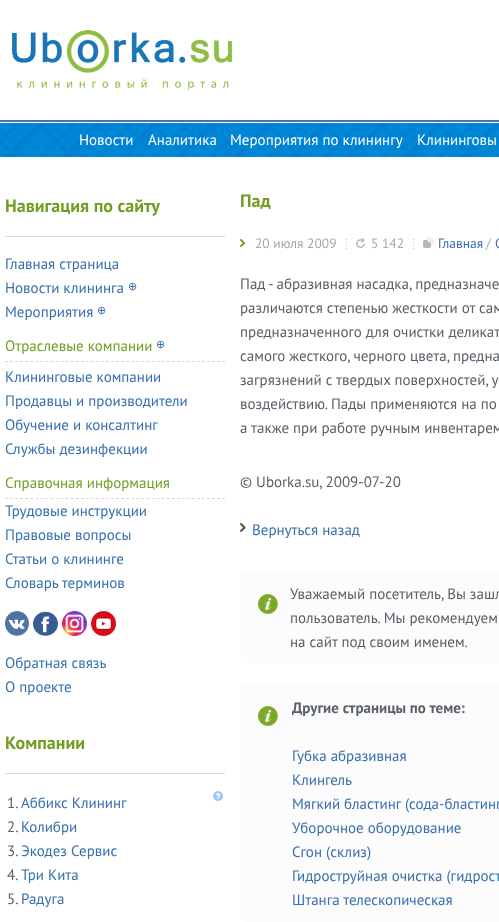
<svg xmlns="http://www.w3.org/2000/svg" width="499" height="922">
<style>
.a{font:15px PT Sans;fill:#fff}
.b{font:bold 18px PT Sans;fill:#739d24}
.c{font:15px PT Sans;fill:#366fad}
.d{font:11px DejaVu Sans;fill:#366fad}
.e{font:15px PT Sans;fill:#739d24}
.f{font:11px DejaVu Sans;fill:#366d96}
.g{font:15px PT Sans;fill:#585f69}
.h{font:13.5px PT Sans;fill:#a6a6a6}
.i{font:13.5px PT Sans;fill:#366fad}
.j{font:bold 15px PT Sans;fill:#585f69}
</style>
<rect width="100%" height="100%" fill="#fff"/>
<image href="1.png" x="12" y="30" width="220" height="60"/>
<path fill="#516eb1" d="M0 120h499v2H0z"/>
<image href="2.png" x="0" y="123" width="499" height="34"/>
<path fill="#d9d9d9" d="M5 236h220v1H5z"/>
<path fill="none" stroke="#d9d9d9" stroke-dasharray="3 2.05" d="M5 361.5h220"/>
<path fill="none" stroke="#d9d9d9" stroke-dasharray="3 2.05" d="M5 498.5h220"/>
<image href="3.png" x="5" y="611" width="24" height="25"/>
<image href="4.png" x="33" y="611" width="25" height="25"/>
<image href="5.png" x="62" y="611" width="25" height="25"/>
<image href="6.png" x="91" y="611" width="25" height="25"/>
<path fill="#d9d9d9" d="M5 773h220v1H5z"/>
<image href="7.png" x="213" y="791" width="10" height="10"/>
<image href="8.png" x="240" y="239" width="5" height="8"/>
<image href="9.png" x="346" y="239" width="1" height="10"/>
<image href="10.png" x="356" y="237" width="9" height="11"/>
<image href="9.png" x="413" y="239" width="1" height="10"/>
<image href="11.png" x="423" y="237" width="11" height="11"/>
<image href="12.png" x="240" y="523" width="6" height="9"/>
<rect fill="#fcfcfc" x="240" y="572" width="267" height="92" rx="8"/>
<image href="13.png" x="258" y="594" width="20" height="20"/>
<rect fill="#fcfcfc" x="240" y="684" width="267" height="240" rx="8"/>
<image href="13.png" x="258" y="706" width="20" height="20"/>
<text class="a" x="79" y="145">Новости</text>
<text class="a" x="148" y="145">Аналитика</text>
<text class="a" x="230" y="145">Мероприятия по клинингу</text>
<text class="a" x="417" y="145">Клининговы</text>
<text class="b" x="5" y="212">Навигация по сайту</text>
<text class="c" x="5" y="269">Главная страница</text>
<text class="c" x="5" y="293">Новости клининга</text>
<text class="d" x="128" y="290">⊕</text>
<text class="c" x="5" y="317">Мероприятия</text>
<text class="d" x="97" y="314">⊕</text>
<text class="e" x="5" y="351">Отраслевые компании</text>
<text class="f" x="156" y="348">⊕</text>
<text class="c" x="5" y="382">Клининговые компании</text>
<text class="c" x="5" y="406">Продавцы и производители</text>
<text class="c" x="5" y="430">Обучение и консалтинг</text>
<text class="c" x="5" y="454">Службы дезинфекции</text>
<text class="e" x="5" y="488">Справочная информация</text>
<text class="c" x="5" y="516">Трудовые инструкции</text>
<text class="c" x="5" y="540">Правовые вопросы</text>
<text class="c" x="5" y="564">Статьи о клининге</text>
<text class="c" x="5" y="588">Словарь терминов</text>
<text class="c" x="5" y="668">Обратная связь</text>
<text class="c" x="5" y="692">О проекте</text>
<text class="b" x="5" y="749">Компании</text>
<text class="g" x="7" y="808">1.</text>
<text class="c" x="21" y="808">Аббикс Клининг</text>
<text class="g" x="7" y="832">2.</text>
<text class="c" x="21" y="832">Колибри</text>
<text class="g" x="7" y="856">3.</text>
<text class="c" x="21" y="856">Экодез Сервис</text>
<text class="g" x="7" y="880">4.</text>
<text class="c" x="21" y="880">Три Кита</text>
<text class="g" x="7" y="904">5.</text>
<text class="c" x="21" y="904">Радуга</text>
<text class="b" x="240" y="207">Пад</text>
<text class="h" x="255" y="248">20 июля 2009</text>
<text class="h" x="371" y="248">5 142</text>
<text class="i" x="438" y="248">Главная</text>
<text class="h" x="486" y="248">/</text>
<text class="i" x="495" y="248">С</text>
<text class="g" x="240" y="289">Пад - абразивная насадка, предназначе</text>
<text class="g" x="240" y="313">различаются степенью жесткости от сам</text>
<text class="g" x="240" y="337">предназначенного для очистки деликат</text>
<text class="g" x="240" y="361">самого жесткого, черного цвета, предна</text>
<text class="g" x="240" y="385">загрязнений с твердых поверхностей, у</text>
<text class="g" x="240" y="409">воздействию. Пады применяются на по</text>
<text class="g" x="240" y="433">а также при работе ручным инвентарем</text>
<text class="g" x="240" y="487">© Uborka.su, 2009-07-20</text>
<text class="c" x="252" y="535">Вернуться назад</text>
<text class="g" x="290" y="599">Уважаемый посетитель, Вы зашл</text>
<text class="g" x="290" y="623">пользователь. Мы рекомендуем</text>
<text class="g" x="290" y="647">на сайт под своим именем.</text>
<text class="j" x="292" y="713">Другие страницы по теме:</text>
<text class="c" x="292" y="761">Губка абразивная</text>
<text class="c" x="292" y="785">Клингель</text>
<text class="c" x="292" y="809">Мягкий бластинг (сода-бластинг</text>
<text class="c" x="292" y="833">Уборочное оборудование</text>
<text class="c" x="292" y="857">Сгон (склиз)</text>
<text class="c" x="292" y="881">Гидроструйная очистка (гидрост</text>
<text class="c" x="292" y="905">Штанга телескопическая</text>
</svg>
